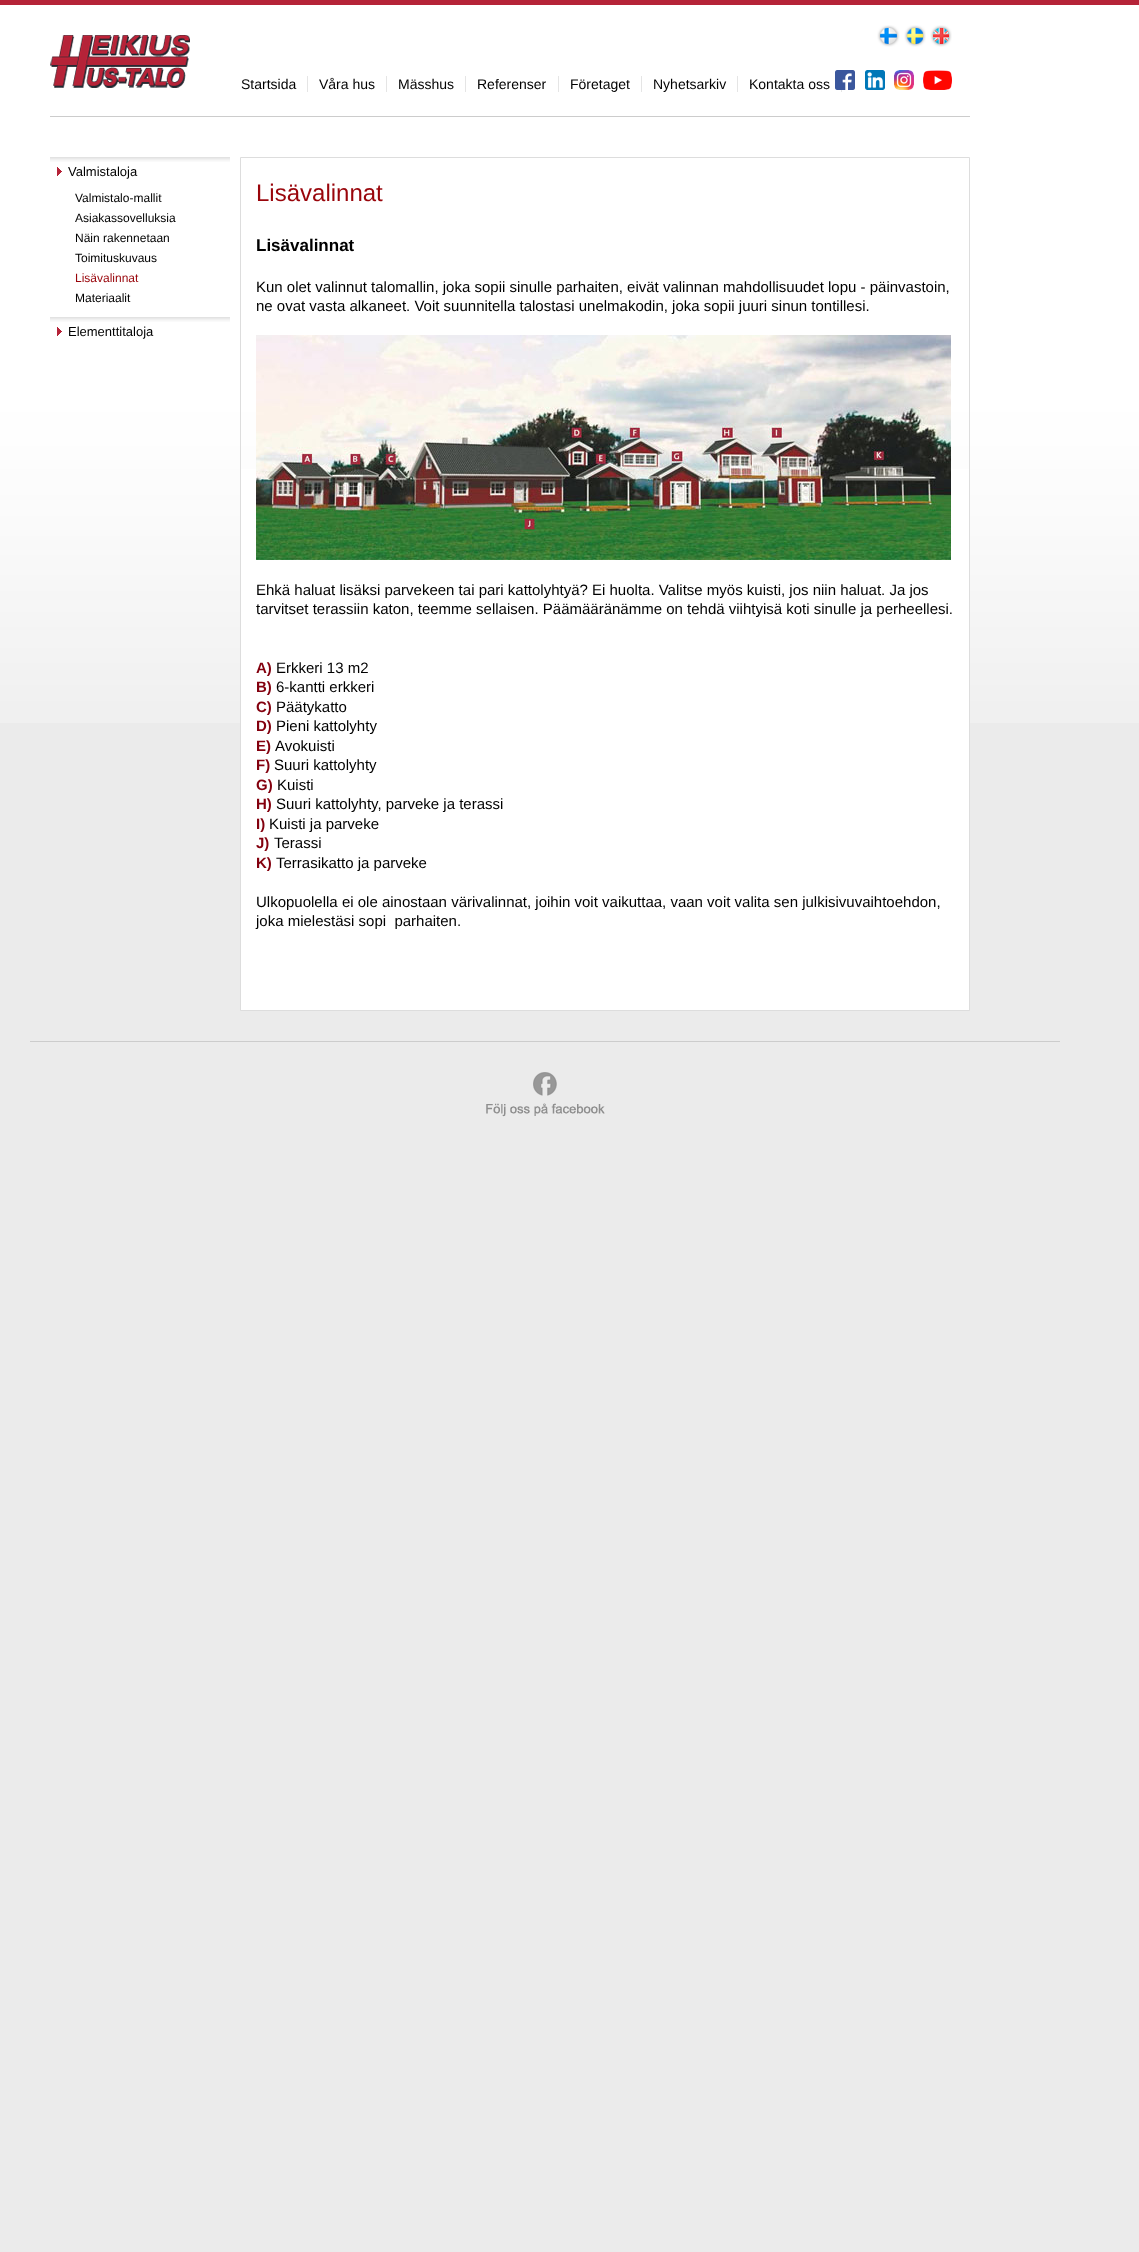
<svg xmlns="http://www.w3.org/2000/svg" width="1139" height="2252">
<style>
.a{font:14px Liberation Sans;fill:#000}
.b{font:13px Liberation Sans;fill:#000}
.c{font:12px Liberation Sans;fill:#000}
.d{font:12px Liberation Sans;fill:#99050b}
.e{font:24px Liberation Sans;fill:#99050b}
.f{font:bold 17px Liberation Sans;fill:#000}
.g{font:15px Liberation Sans;fill:#000}
.h{font:bold 15px Liberation Sans;fill:#83000e}
</style>
<rect width="100%" height="100%" fill="#ebebeb"/>
<image href="1.png" x="0" y="0" width="1139" height="723"/>
<image href="2.png" x="50" y="35" width="140" height="53"/>
<image href="3.png" x="877" y="25" width="23" height="22"/>
<image href="4.png" x="904" y="25" width="22" height="22"/>
<image href="5.png" x="930" y="25" width="22" height="22"/>
<path fill="#e5e5e5" d="M307 76h1v16H307z"/>
<path fill="#e5e5e5" d="M386 76h1v16H386z"/>
<path fill="#e5e5e5" d="M465 76h1v16H465z"/>
<path fill="#e5e5e5" d="M558 76h1v16H558z"/>
<path fill="#e5e5e5" d="M641 76h1v16H641z"/>
<path fill="#e5e5e5" d="M737 76h1v16H737z"/>
<path fill="#e5e5e5" d="M841 90h1v2H841z"/>
<image href="6.png" x="835" y="70" width="20" height="20"/>
<image href="7.png" x="865" y="70" width="20" height="20"/>
<image href="8.png" x="894" y="70" width="20" height="20"/>
<image href="9.png" x="923" y="70" width="29" height="20"/>
<path fill="#ccc" d="M50 116h920v1H50z"/>
<image href="10.png" x="50" y="157" width="180" height="5"/>
<image href="11.png" x="57" y="167" width="5" height="9"/>
<image href="10.png" x="50" y="317" width="180" height="5"/>
<image href="11.png" x="57" y="327" width="5" height="9"/>
<path fill="#fff" d="M241 469h728v541H241z"/>
<path fill="none" stroke="#ddd" d="M240.5 157.5h729v853H240.5z"/>
<image href="12.png" x="256" y="335" width="695" height="225"/>
<path fill="#ccc" d="M30 1041h1030v1H30z"/>
<image href="13.png" x="486" y="1072" width="119" height="45"/>
<text class="a" x="241" y="89">Startsida</text>
<text class="a" x="319" y="89">Våra hus</text>
<text class="a" x="398" y="89">Mässhus</text>
<text class="a" x="477" y="89">Referenser</text>
<text class="a" x="570" y="89">Företaget</text>
<text class="a" x="653" y="89">Nyhetsarkiv</text>
<text class="a" x="749" y="89">Kontakta oss</text>
<text class="b" x="68" y="176">Valmistaloja</text>
<text class="c" x="75" y="202">Valmistalo-mallit</text>
<text class="c" x="75" y="222">Asiakassovelluksia</text>
<text class="c" x="75" y="242">Näin rakennetaan</text>
<text class="c" x="75" y="262">Toimituskuvaus</text>
<text class="d" x="75" y="282">Lisävalinnat</text>
<text class="c" x="75" y="302">Materiaalit</text>
<text class="b" x="68" y="336">Elementtitaloja</text>
<text class="e" x="256" y="201">Lisävalinnat</text>
<text class="f" x="256" y="251">Lisävalinnat</text>
<text class="g" x="256" y="292">Kun olet valinnut talomallin, joka sopii sinulle parhaiten, eivät valinnan mahdollisuudet lopu - päinvastoin,</text>
<text class="g" x="256" y="311">ne ovat vasta alkaneet. Voit suunnitella talostasi unelmakodin, joka sopii juuri sinun tontillesi.</text>
<text class="g" x="256" y="595">Ehkä haluat lisäksi parvekeen tai pari kattolyhtyä? Ei huolta. Valitse myös kuisti, jos niin haluat. Ja jos</text>
<text class="g" x="256" y="614">tarvitset terassiin katon, teemme sellaisen. Päämääränämme on tehdä viihtyisä koti sinulle ja perheellesi.</text>
<text class="h" x="256" y="673">A)</text>
<text class="g" x="276" y="673">Erkkeri 13 m2</text>
<text class="h" x="256" y="692">B)</text>
<text class="g" x="276" y="692">6-kantti erkkeri</text>
<text class="h" x="256" y="712">C)</text>
<text class="g" x="276" y="712">Päätykatto</text>
<text class="h" x="256" y="731">D)</text>
<text class="g" x="276" y="731">Pieni kattolyhty</text>
<text class="h" x="256" y="751">E)</text>
<text class="g" x="275" y="751">Avokuisti</text>
<text class="h" x="256" y="770">F)</text>
<text class="g" x="274" y="770">Suuri kattolyhty</text>
<text class="h" x="256" y="790">G)</text>
<text class="g" x="277" y="790">Kuisti</text>
<text class="h" x="256" y="809">H)</text>
<text class="g" x="276" y="809">Suuri kattolyhty, parveke ja terassi</text>
<text class="h" x="256" y="829">I)</text>
<text class="g" x="269" y="829">Kuisti ja parveke</text>
<text class="h" x="256" y="848">J)</text>
<text class="g" x="274" y="848">Terassi</text>
<text class="h" x="256" y="868">K)</text>
<text class="g" x="276" y="868">Terrasikatto ja parveke</text>
<text class="g" x="256" y="907">Ulkopuolella ei ole ainostaan värivalinnat, joihin voit vaikuttaa, vaan voit valita sen julkisivuvaihtoehdon,</text>
<text class="g" xml:space="preserve" x="256" y="926">joka mielestäsi sopi  parhaiten.</text>
</svg>
